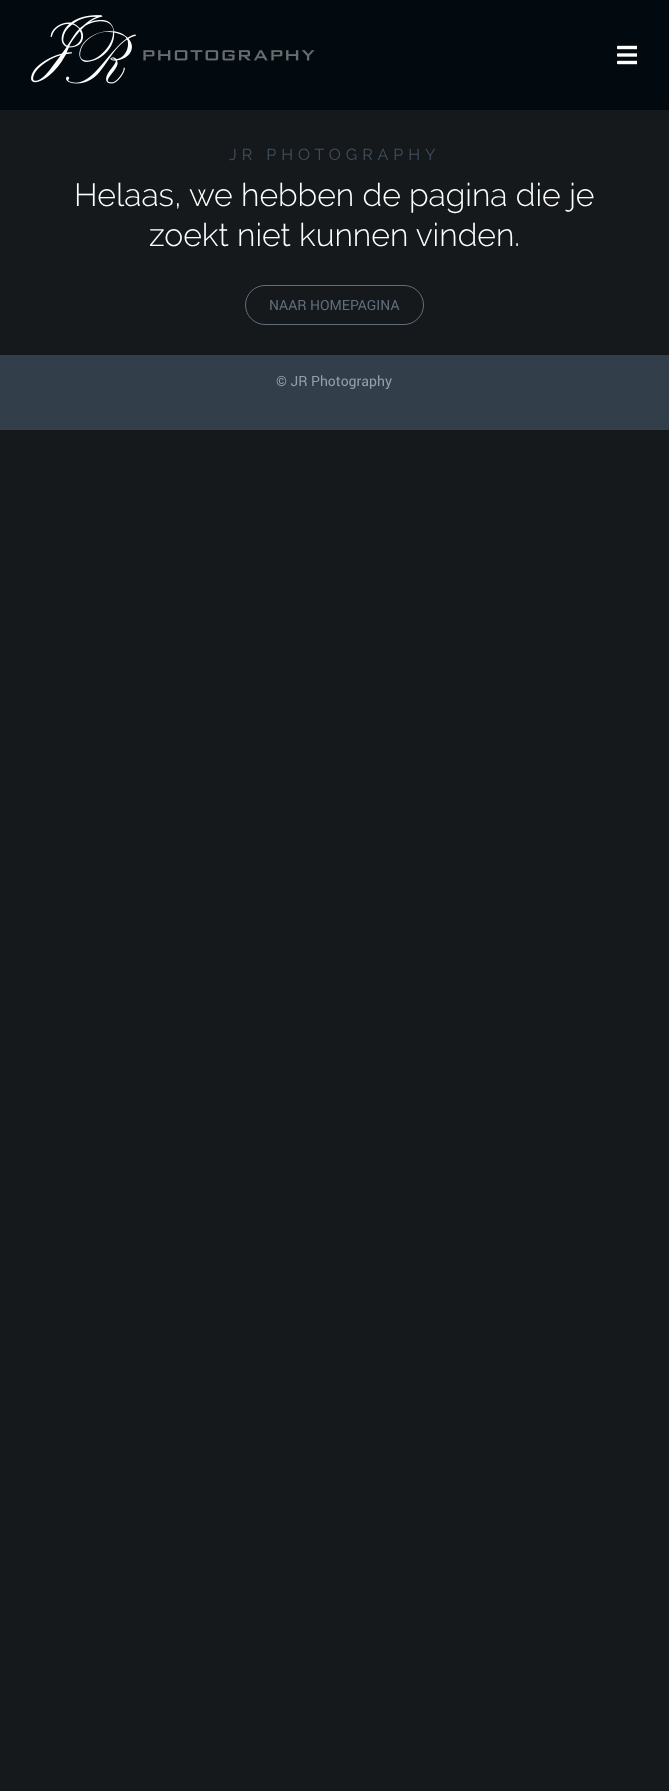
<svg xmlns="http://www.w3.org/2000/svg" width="669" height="1791">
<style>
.a{font:16px Raleway;letter-spacing:5px;fill:#415161}
.b{font:300 32px Raleway;fill:#fff}
.c{font:14px Roboto;fill:#616e7c}
.d{font:14px Roboto;fill:#929fad}
</style>
<rect width="100%" height="100%" fill="#16191c"/>
<path fill="#030a0f" d="M0 0h669v110H0z"/>
<image href="1.png" x="31" y="15" width="284" height="69"/>
<image href="2.png" x="617" y="45" width="20" height="20"/>
<rect fill="none" stroke="#616e7c" x="245.5" y="285.5" width="178" height="39" rx="19.5"/>
<path fill="#323f4b" d="M0 355h669v75H0z"/>
<text class="a" x="229" y="160">JR PHOTOGRAPHY</text>
<text class="b" x="74" y="206">Helaas, we hebben de pagina die je</text>
<text class="b" x="149" y="246">zoekt niet kunnen vinden.</text>
<text class="c" x="269" y="310">NAAR HOMEPAGINA</text>
<text class="d" x="276" y="386">© JR Photography</text>
</svg>
